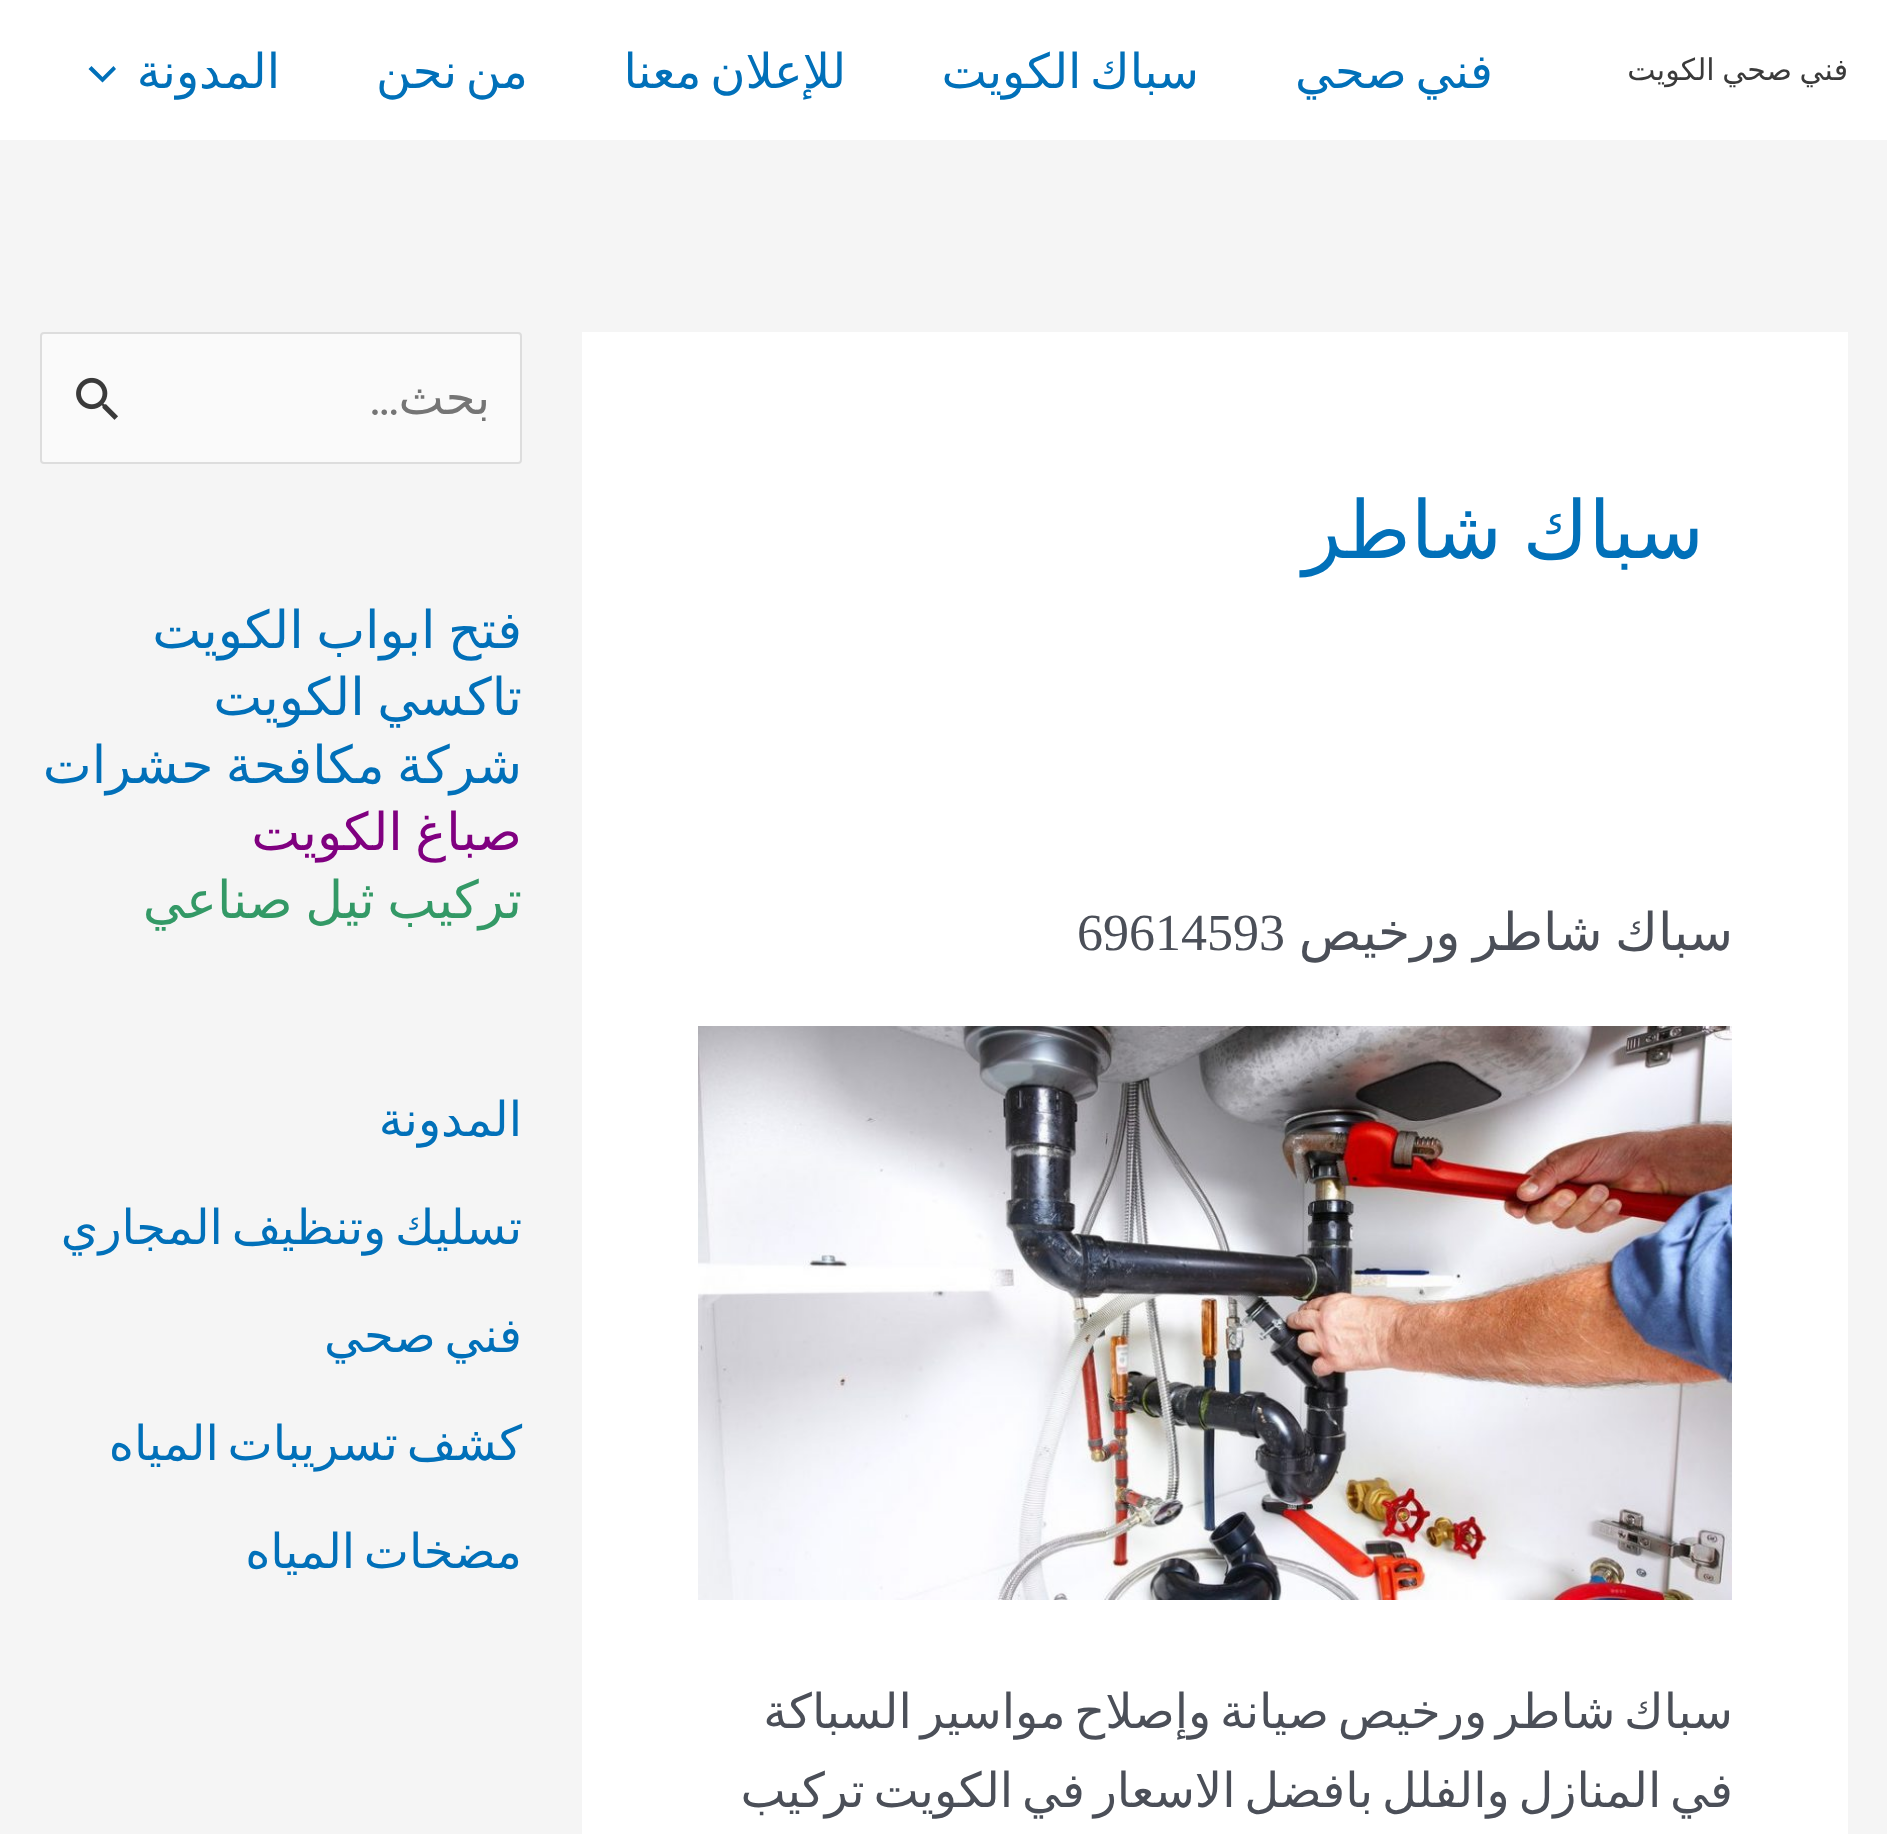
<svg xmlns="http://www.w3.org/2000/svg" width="1887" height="1834">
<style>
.a{font:30px DejaVu Sans;direction:rtl;fill:#3a3a3a}
.b{font:48px DejaVu Sans;direction:rtl;fill:#0170b9}
.c{font:80px DejaVu Sans;direction:rtl;fill:#0170b9}
.d{font:52px DejaVu Sans;direction:rtl;fill:#4b4f58}
.e{font:52px Liberation Serif;fill:#4b4f58}
.f{font:48px DejaVu Sans;direction:rtl;fill:#4b4f58}
.g{font:48px DejaVu Sans;direction:rtl;fill:#757575}
.h{font:48px Allan;direction:rtl;fill:#757575}
.i{font:52px DejaVu Sans;direction:rtl;fill:#0170b9}
.j{font:52px DejaVu Sans;direction:rtl;fill:#800080}
.k{font:52px DejaVu Sans;direction:rtl;fill:#396}
</style>
<defs>
<clipPath id="clip1"><path d="M698 900h1034v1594H698z"/></clipPath>
</defs>
<rect width="100%" height="100%" fill="#f5f5f5"/>
<path fill="#fff" d="M0 0h1887v140H0z"/>
<path fill="#0170b9" d="M88.5 69l14 13.5l13.5-13.5l-2.5-3l-11 11l-11-11z"/>
<path fill="#fff" d="M582 332h1266v1502H582z"/>
<image href="1.png" x="698" y="1026" width="1034" height="574"/>
<rect fill="#fafafa" stroke="#ddd" stroke-width="2" x="41" y="333" width="480" height="130" rx="3"/>
<image href="2.png" x="76" y="377" width="42" height="43"/>
<text class="a" x="1848" y="80" word-spacing="-2">فني صحي الكويت</text>
<text class="b" x="1493" y="88" word-spacing="-6.5">فني صحي</text>
<text class="b" x="1199" y="88" word-spacing="-6.5">سباك الكويت</text>
<text class="b" x="846" y="88" word-spacing="-6.5">للإعلان معنا</text>
<text class="b" x="528" y="88" word-spacing="-6.5">من نحن</text>
<text class="b" x="280" y="88">المدونة</text>
<text class="c" x="1704" y="558" word-spacing="-5">سباك شاطر</text>
<g clip-path="url(#clip1)">
<text class="d" x="1733" y="950" word-spacing="-4">سباك شاطر ورخيص</text>
</g>
<text class="e" x="1077" y="950">69614593</text>
<g clip-path="url(#clip1)">
<text class="f" x="1733" y="1728" word-spacing="-6.5">سباك شاطر ورخيص صيانة وإصلاح مواسير السباكة</text>
<text class="f" x="1733" y="1807" word-spacing="-6.5">في المنازل والفلل بافضل الاسعار في الكويت تركيب</text>
</g>
<text class="g" x="490" y="414">بحث</text>
<text class="h" x="399" y="414">...</text>
<text class="i" x="522" y="648" word-spacing="-4">فتح ابواب الكويت</text>
<text class="i" x="522" y="715" word-spacing="-4">تاكسي الكويت</text>
<text class="i" x="522" y="783" word-spacing="-4">شركة مكافحة حشرات</text>
<text class="j" x="522" y="850" word-spacing="-4">صباغ الكويت</text>
<text class="k" x="522" y="918" word-spacing="-4">تركيب ثيل صناعي</text>
<text class="b" x="522" y="1136">المدونة</text>
<text class="b" x="522" y="1244" word-spacing="-6.5">تسليك وتنظيف المجاري</text>
<text class="b" x="522" y="1352" word-spacing="-6.5">فني صحي</text>
<text class="b" x="522" y="1460" word-spacing="-6.5">كشف تسريبات المياه</text>
<text class="b" x="522" y="1568" word-spacing="-6.5">مضخات المياه</text>
</svg>
